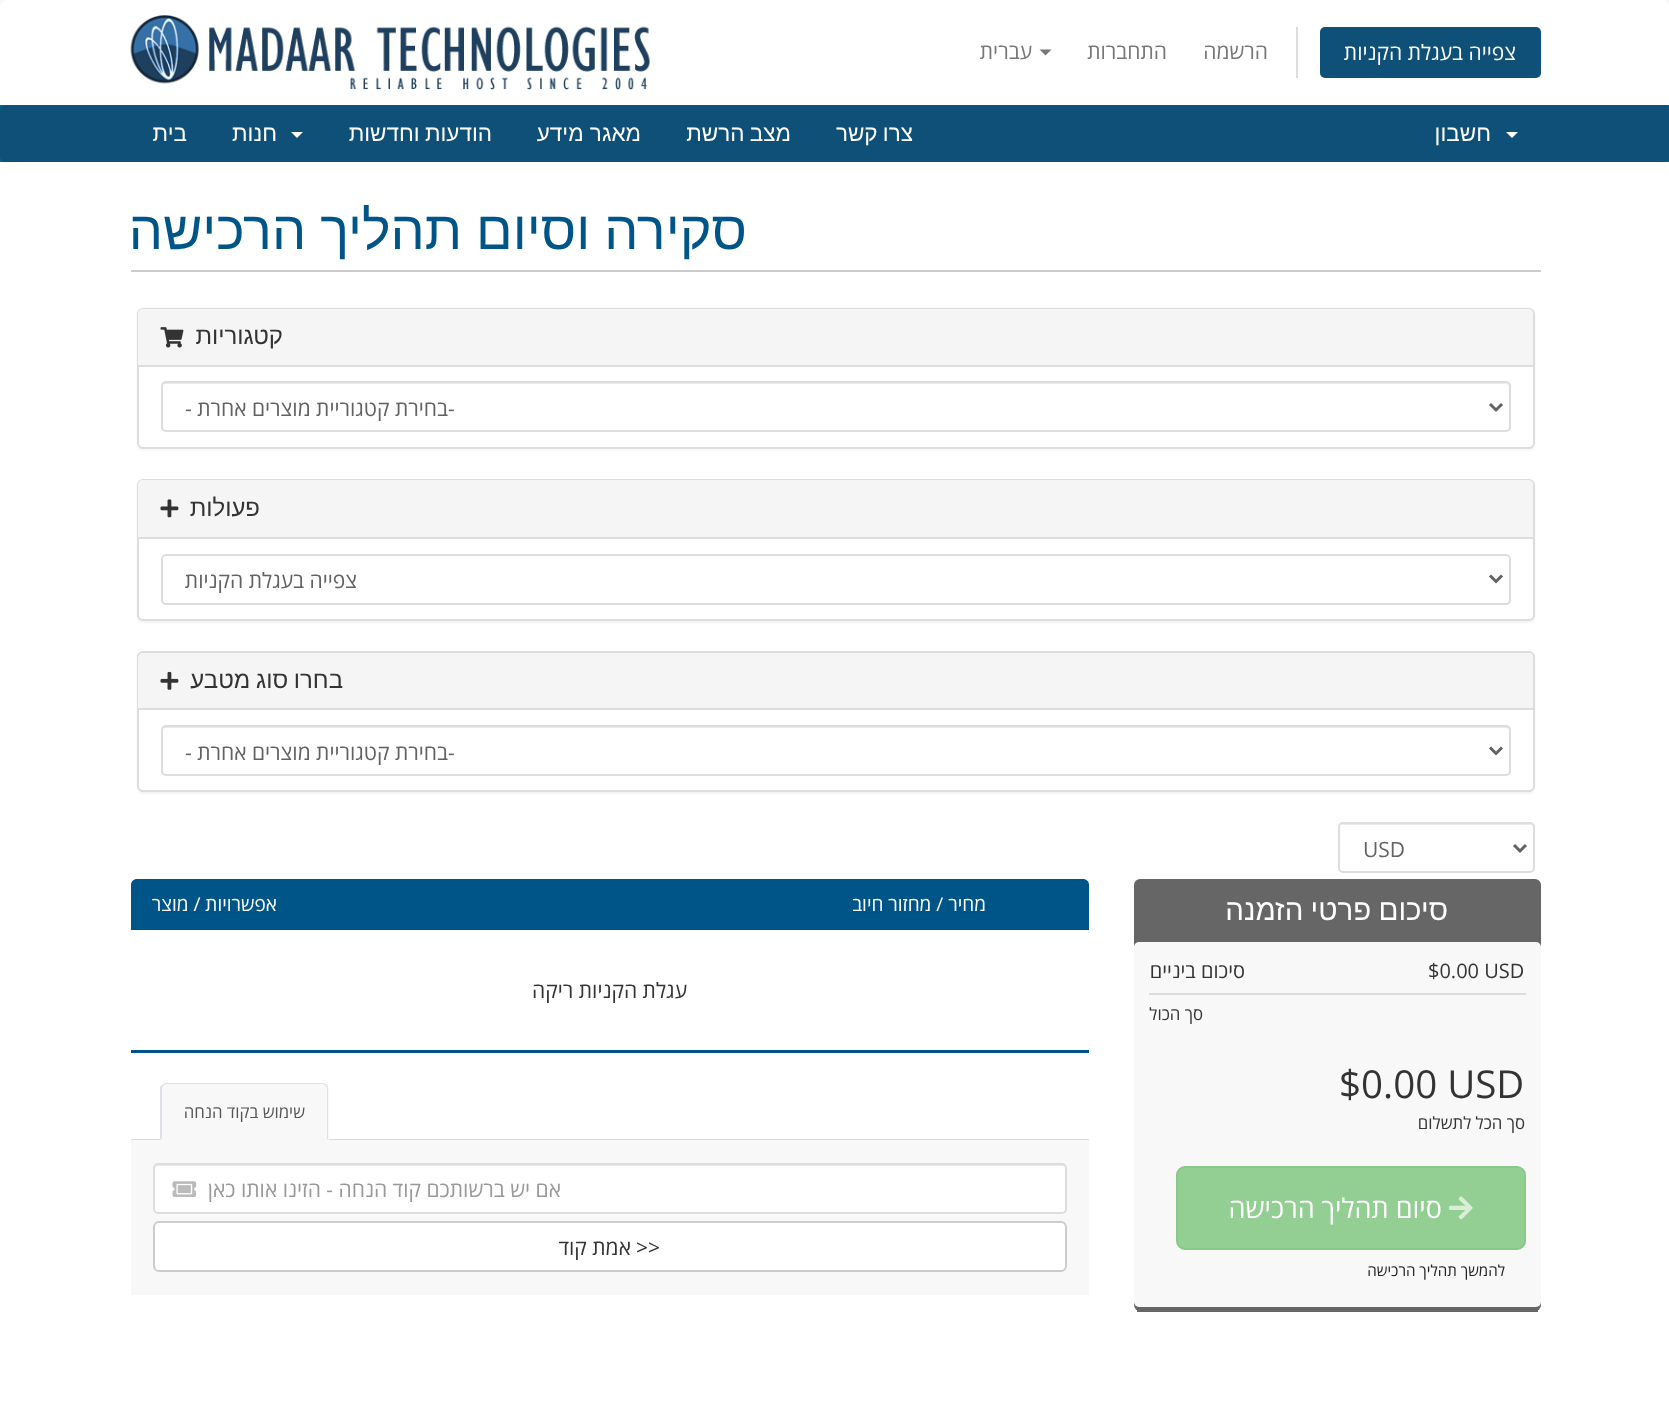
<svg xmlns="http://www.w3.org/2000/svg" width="1669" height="1405">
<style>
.a{font:21px Open Sans;direction:rtl;fill:#fff}
.b{font:21px Open Sans;direction:rtl;fill:#777}
.c{font:22.5px Liberation Sans;direction:rtl;fill:#fff}
.d{font:54px Liberation Sans;direction:rtl;fill:#058}
.e{font:24px Liberation Sans;direction:rtl;fill:#333}
.f{font:21px Open Sans;fill:#626262}
.g{font:21px Open Sans;direction:rtl;fill:#626262}
.h{font:29.5px Liberation Sans;direction:rtl;fill:#fff}
.i{font:20px Open Sans;fill:#333}
.j{font:20px Open Sans;direction:rtl;fill:#333}
.k{font:16.75px Open Sans;direction:rtl;fill:#333}
.l{font:38.5px Open Sans;fill:#333}
.m{font:27px Open Sans;direction:rtl;fill:#fff}
.n{font:15.1px Open Sans;direction:rtl;fill:#222}
.o{font:19px Open Sans;direction:rtl;fill:#fff}
.p{font:21px Open Sans;direction:rtl;fill:#333}
.q{font:16.75px Open Sans;direction:rtl;fill:#555}
.r{font:21px Open Sans;direction:rtl;fill:#999}
.s{font:21px Open Sans;fill:#333}
</style>
<rect width="100%" height="100%" fill="#f8f8f8"/>
<path fill="#fff" d="M8 0h1654c4.5 0 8 3.5 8 8v97h-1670v-97c0-4.5 3.5-8 8-8z"/>
<path fill="#ddd" d="M1296 27h2v51H1296z"/>
<rect fill="#0e5077" x="1320" y="27" width="221" height="51" rx="5"/>
<path fill="#777" d="M1039.5 49.5h12l-6 6z"/>
<image href="1.png" x="130" y="15" width="520" height="75"/>
<path fill="#006687" d="M0 105h1669v57H0z"/>
<rect fill="#0e5077" y="105" width="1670" height="57" rx="6"/>
<path fill="#fff" d="M1506 132h12l-6 6z"/>
<path fill="#fff" d="M291 132h12l-6 6z"/>
<path fill="#fff" d="M0 162h1669v1243H0z"/>
<path fill="#ccc" d="M131 270h1410v2H131z"/>
<rect fill="#0000000d" filter="blur(1px)" x="137" y="309" width="1398" height="141" rx="6"/>
<rect fill="#fff" stroke="#ddd" stroke-width="2" x="138" y="309" width="1396" height="139" rx="5"/>
<path fill="#f5f5f5" d="M143 309h1385c3 0 5 2 5 5v52h-1395v-52c0-3 2-5 5-5z"/>
<path fill="#ddd" d="M138 365h1395v2H138z"/>
<image href="2.png" x="160" y="327" width="24" height="21"/>
<path fill="#ececec" d="M165 384h1341c2 0 3 1 3 3v-1c0-2-1-3-3-3h-1341c-2 0-3 1-3 3v1c0-2 1-3 3-3z"/>
<rect fill="none" stroke="#ddd" stroke-width="2" x="162" y="382" width="1348" height="49" rx="4"/>
<path fill="none" stroke="#626262" stroke-width="3" d="M1490 404l6 6l6-6"/>
<rect fill="#0000000d" filter="blur(1px)" x="137" y="480" width="1398" height="143" rx="6"/>
<rect fill="#fff" stroke="#ddd" stroke-width="2" x="138" y="480" width="1396" height="140" rx="5"/>
<path fill="#f5f5f5" d="M143 480h1385c3 0 5 2 5 5v54h-1395v-54c0-3 2-5 5-5z"/>
<path fill="#ddd" d="M138 537h1395v2H138z"/>
<image href="3.png" x="160" y="499" width="19" height="19"/>
<rect fill="none" stroke="#ddd" stroke-width="2" x="162" y="555" width="1348" height="49" rx="4"/>
<path fill="none" stroke="#626262" stroke-width="3" d="M1490 575.5l6 6l6-6"/>
<rect fill="#0000000d" filter="blur(1px)" x="137" y="653" width="1398" height="141" rx="6"/>
<rect fill="#fff" stroke="#ddd" stroke-width="2" x="138" y="652" width="1396" height="139" rx="5"/>
<path fill="#f5f5f5" d="M143 653h1385c3 0 5 2 5 5v52h-1395v-52c0-3 2-5 5-5z"/>
<path fill="#ddd" d="M138 708h1395v2H138z"/>
<image href="4.png" x="160" y="671" width="19" height="19"/>
<path fill="#ececec" d="M165 728h1341c2 0 3 1 3 2v-1c0-2-1-3-3-3h-1341c-2 0-3 1-3 3v1c0-1 1-2 3-2z"/>
<rect fill="none" stroke="#ddd" stroke-width="2" x="162" y="726" width="1348" height="49" rx="4"/>
<path fill="none" stroke="#626262" stroke-width="3" d="M1490 747.5l6 6l6-6"/>
<path fill="#ececec" d="M1342 825h188c2 0 3 1 3 3c0-2-1-4-3-4h-187c-2 0-3 2-3 4c0-2 1-3 2-3z"/>
<rect fill="none" stroke="#ddd" stroke-width="2" x="1339" y="823" width="195" height="49" rx="4"/>
<path fill="none" stroke="#626262" stroke-width="3" d="M1514 845l6 6l6-6"/>
<rect fill="#666" x="1134" y="879" width="407" height="432" rx="6"/>
<path fill="#666" d="M1137 1310h401v2H1137z"/>
<rect fill="#f8f8f8" x="1134" y="942" width="407" height="365" rx="5"/>
<path fill="#ddd" d="M1149 993h377v2H1149z"/>
<rect fill="#93ce93" stroke="#88c888" stroke-width="2" x="1177" y="1167" width="348" height="82" rx="8"/>
<image href="5.png" x="1449" y="1196" width="24" height="24"/>
<path fill="#058" d="M137 879h946c3.5 0 6 2.5 6 6v45h-958v-45c0-3.5 2.5-6 6-6z"/>
<path fill="#058" d="M131 1050h958v3H131z"/>
<path fill="#ddd" d="M131 1139h958v1H131z"/>
<path fill="#f8f8f8" d="M167 1083h156c3.5 0 6 2.5 6 6v51h-168v-51c0-3.5 2.5-6 6-6z"/>
<path fill="#dee2e6" d="M166 1083c-1 0-3 1-4 2l1 1c1-1 2-2 3-2h157l3 2l1-1c-1-1-3-2-5-2z"/>
<path fill="#dee2e6" d="M327 1085c1 1 1 3 1 4v51l-2-2h1v-49c0-1 0-2-1-3z"/>
<path fill="#f8f8f8" d="M160 1140h168l-2-2h-164z"/>
<path fill="#dee2e6" d="M160 1140v-53l2-2l1 1c-1 1-1 2-1 3v49z"/>
<path fill="#f8f8f8" d="M131 1140h958v155H131z"/>
<rect fill="#fff" x="153" y="1163" width="914" height="51" rx="5"/>
<path fill="#ececec" d="M158 1166h904c2 0 3 1 3 2v-1c0-2-1-3-3-3h-904c-2 0-3 1-3 3z"/>
<rect fill="none" stroke="#ddd" stroke-width="2" x="154" y="1164" width="912" height="49" rx="4"/>
<image href="6.png" x="172" y="1181" width="25" height="16"/>
<rect fill="#fff" stroke="#ccc" stroke-width="2" x="154" y="1222" width="912" height="49" rx="5"/>
<text class="a" x="1516" y="60">צפייה בעגלת הקניות</text>
<text class="b" x="1268" y="59">הרשמה</text>
<text class="b" x="1167" y="59">התחברות</text>
<text class="b" x="1032" y="59">עברית</text>
<text class="c" x="1491" y="141">חשבון</text>
<text class="c" x="913" y="141" word-spacing="-1">צרו קשר</text>
<text class="c" x="791" y="141" word-spacing="-1">מצב הרשת</text>
<text class="c" x="641" y="141">מאגר מידע</text>
<text class="c" x="492" y="141" word-spacing="-1">הודעות וחדשות</text>
<text class="c" x="277" y="141">חנות</text>
<text class="c" x="187" y="141">בית</text>
<text class="d" x="747" y="249" word-spacing="-1">סקירה וסיום תהליך הרכישה</text>
<text class="e" x="283" y="344">קטגוריות</text>
<text class="f" x="448" y="416">-</text>
<text class="g" x="448" y="416">בחירת קטגוריית מוצרים אחרת</text>
<text class="f" x="185" y="416">-</text>
<text class="e" x="260" y="516">פעולות</text>
<text class="g" x="357" y="588">צפייה בעגלת הקניות</text>
<text class="e" x="343" y="688" word-spacing="-1">בחרו סוג מטבע</text>
<text class="f" x="448" y="760">-</text>
<text class="g" x="448" y="760">בחירת קטגוריית מוצרים אחרת</text>
<text class="f" x="185" y="760">-</text>
<text class="f" x="1363" y="857">USD</text>
<text class="h" x="1448" y="920" word-spacing="-1">סיכום פרטי הזמנה</text>
<text class="i" x="1428" y="978">$0.00 USD</text>
<text class="j" x="1245" y="978">סיכום ביניים</text>
<text class="k" x="1203" y="1020">סך הכול</text>
<text class="l" x="1339" y="1098">$0.00 USD</text>
<text class="k" x="1525" y="1129">סך הכל לתשלום</text>
<text class="m" x="1442" y="1218">סיום תהליך הרכישה</text>
<text class="n" x="1505" y="1276">להמשך תהליך הרכישה</text>
<text class="o" x="986" y="911">מחיר / מחזור חיוב</text>
<text class="o" x="277" y="911">אפשרויות / מוצר</text>
<text class="p" x="687" y="998">עגלת הקניות ריקה</text>
<text class="q" x="305" y="1118">שימוש בקוד הנחה</text>
<text class="r" x="561" y="1197">אם יש ברשותכם קוד הנחה - הזינו אותו כאן</text>
<text class="s" x="636" y="1255">&gt;&gt;</text>
<text class="p" x="631" y="1255">אמת קוד</text>
</svg>
